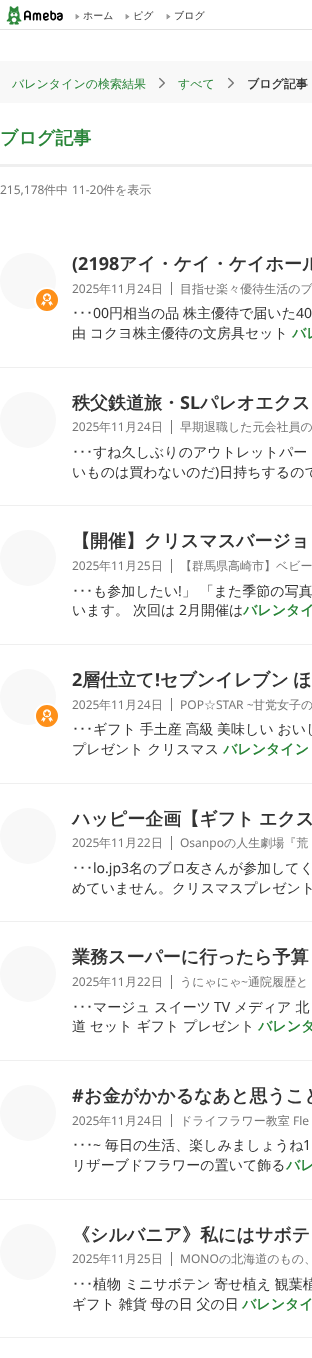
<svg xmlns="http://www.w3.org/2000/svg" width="312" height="1358">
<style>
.a{font:500 10px WenQuanYi Zen Hei;fill:#333}
.b{font:500 12px WenQuanYi Zen Hei;fill:#298538}
.c{font:bold 12px WenQuanYi Zen Hei;fill:#333}
.d{font:bold 18px WenQuanYi Zen Hei;fill:#298538}
.e{font:12px Noto Sans;fill:#757575}
.f{font:500 12px WenQuanYi Zen Hei;fill:#757575}
.g{font:bold 18px Noto Sans;fill:#333}
.h{font:bold 18px WenQuanYi Zen Hei;fill:#333}
.i{font:14px IPAPGothic;fill:#333}
.j{font:14px Noto Sans;fill:#333}
.k{font:500 14px WenQuanYi Zen Hei;fill:#333}
.l{font:bold 14px WenQuanYi Zen Hei;fill:#298538}
</style>
<rect width="100%" height="100%" fill="#fff"/>
<path fill="#e2e2e2" d="M0 29h312v1H0z"/>
<image href="1.png" x="6" y="6" width="57" height="19"/>
<image href="2.png" x="75" y="14" width="5" height="6"/>
<image href="2.png" x="125" y="14" width="5" height="6"/>
<image href="2.png" x="166" y="14" width="5" height="6"/>
<path fill="#f8f8f8" d="M0 61h312v42H0z"/>
<image href="3.png" x="159" y="77" width="6" height="12"/>
<image href="3.png" x="228" y="77" width="6" height="12"/>
<path fill="#efefef" d="M0 164h312v3H0z"/>
<path fill="#efefef" d="M0 367h312v1H0z"/>
<circle fill="#f8f8f8" cx="28" cy="281" r="28"/>
<circle fill="#fe9019" stroke="#fff" stroke-width="2" cx="47" cy="300" r="12"/>
<image href="4.png" x="41" y="293" width="12" height="14"/>
<path fill="#757575" d="M171 282h1v13H171z"/>
<path fill="#efefef" d="M0 505h312v1H0z"/>
<circle fill="#f8f8f8" cx="28" cy="420" r="28"/>
<path fill="#757575" d="M171 420h1v14H171z"/>
<path fill="#efefef" d="M0 644h312v1H0z"/>
<circle fill="#f8f8f8" cx="28" cy="558" r="28"/>
<path fill="#757575" d="M171 559h1v14H171z"/>
<path fill="#efefef" d="M0 783h312v1H0z"/>
<circle fill="#f8f8f8" cx="28" cy="697" r="28"/>
<circle fill="#fe9019" stroke="#fff" stroke-width="2" cx="47" cy="716" r="12"/>
<image href="4.png" x="41" y="709" width="12" height="14"/>
<path fill="#757575" d="M171 698h1v13H171z"/>
<path fill="#efefef" d="M0 921h312v1H0z"/>
<circle fill="#f8f8f8" cx="28" cy="836" r="28"/>
<path fill="#757575" d="M171 836h1v14H171z"/>
<path fill="#efefef" d="M0 1060h312v1H0z"/>
<circle fill="#f8f8f8" cx="28" cy="974" r="28"/>
<path fill="#757575" d="M171 975h1v14H171z"/>
<path fill="#efefef" d="M0 1199h312v1H0z"/>
<circle fill="#f8f8f8" cx="28" cy="1113" r="28"/>
<path fill="#757575" d="M171 1114h1v13H171z"/>
<path fill="#efefef" d="M0 1337h312v1H0z"/>
<circle fill="#f8f8f8" cx="28" cy="1252" r="28"/>
<path fill="#757575" d="M171 1252h1v14H171z"/>
<text class="a" x="83" y="19">ホーム</text>
<text class="a" x="133" y="19">ピグ</text>
<text class="a" x="174" y="19">ブログ</text>
<text class="b" x="12" y="88">バレンタインの検索結果</text>
<text class="b" x="178" y="88">すべて</text>
<text class="c" x="247" y="88">ブログ記事</text>
<text class="d" x="0" y="144">ブログ記事</text>
<text class="e" x="0" y="194">215,178</text>
<text class="f" x="44" y="194">件中</text>
<text class="e" x="72" y="194">11-20</text>
<text class="f" x="103" y="194">件を表示</text>
<text class="g" x="72" y="270">(2198</text>
<text class="h" x="119" y="270">アイ・ケイ・ケイホール</text>
<text class="e" x="72" y="293">2025</text>
<text class="f" x="99" y="293">年</text>
<text class="e" x="111" y="293">11</text>
<text class="f" x="125" y="293">月</text>
<text class="e" x="137" y="293">24</text>
<text class="f" x="151" y="293">日</text>
<text class="f" x="180" y="293">目指せ楽々優待生活のブ</text>
<text class="i" x="72" y="318">･･･</text>
<text class="j" x="93" y="318">00</text>
<text class="k" x="109" y="318" word-spacing="-0.5">円相当の品 株主優待で届いた</text>
<text class="j" x="296" y="318">40</text>
<text class="k" x="72" y="338" word-spacing="-0.5">由 コクヨ株主優待の文房具セット</text>
<text class="l" x="292" y="338">バレ</text>
<text class="h" x="72" y="409">秩父鉄道旅・</text>
<text class="g" x="180" y="409">SL</text>
<text class="h" x="200" y="409">パレオエクス</text>
<text class="e" x="72" y="431">2025</text>
<text class="f" x="99" y="431">年</text>
<text class="e" x="111" y="431">11</text>
<text class="f" x="125" y="431">月</text>
<text class="e" x="137" y="431">24</text>
<text class="f" x="151" y="431">日</text>
<text class="f" x="180" y="431">早期退職した元会社員の</text>
<text class="i" x="72" y="457">･･･</text>
<text class="k" x="93" y="457">すね久しぶりのアウトレットパー</text>
<text class="k" x="72" y="477">いものは買わないのだ 日持ちするので</text>
<text class="j" x="215" y="477">)</text>
<text class="h" x="72" y="547">【開催】クリスマスバージョ</text>
<text class="e" x="72" y="570">2025</text>
<text class="f" x="99" y="570">年</text>
<text class="e" x="111" y="570">11</text>
<text class="f" x="125" y="570">月</text>
<text class="e" x="137" y="570">25</text>
<text class="f" x="151" y="570">日</text>
<text class="f" x="180" y="570">【群馬県高崎市】ベビー</text>
<text class="i" x="72" y="596">･･･</text>
<text class="k" x="93" y="596">も参加したい</text>
<text class="j" x="178" y="596">!</text>
<text class="k" x="182" y="596" word-spacing="-0.5">」 「また季節の写真</text>
<text class="k" x="72" y="615">います。</text>
<text class="k" x="133" y="615">次回は</text>
<text class="j" x="179" y="615">2</text>
<text class="k" x="187" y="615">月開催は</text>
<text class="l" x="243" y="615">バレンタイ</text>
<text class="g" x="72" y="686">2</text>
<text class="h" x="82" y="686">層仕立て</text>
<text class="g" x="155" y="686">!</text>
<text class="h" x="160" y="686" word-spacing="-1">セブンイレブン ほ</text>
<text class="e" x="72" y="709">2025</text>
<text class="f" x="99" y="709">年</text>
<text class="e" x="111" y="709">11</text>
<text class="f" x="125" y="709">月</text>
<text class="e" x="137" y="709">24</text>
<text class="f" x="151" y="709">日</text>
<text class="e" x="180" y="709">POP</text>
<text class="f" x="204" y="709">☆</text>
<text class="e" x="216" y="709">STAR ~</text>
<text class="f" x="253" y="709">甘党女子の</text>
<text class="i" x="72" y="734">･･･</text>
<text class="k" x="93" y="734" word-spacing="-0.5">ギフト 手土産 高級 美味しい おいし</text>
<text class="k" x="72" y="754" word-spacing="-0.5">プレゼント クリスマス</text>
<text class="l" x="223" y="754">バレンタイン</text>
<text class="h" x="72" y="825">ハッピー企画【ギフト</text>
<text class="h" x="259" y="825">エクス</text>
<text class="e" x="72" y="847">2025</text>
<text class="f" x="99" y="847">年</text>
<text class="e" x="111" y="847">11</text>
<text class="f" x="125" y="847">月</text>
<text class="e" x="137" y="847">22</text>
<text class="f" x="151" y="847">日</text>
<text class="e" x="180" y="847">Osanpo</text>
<text class="f" x="224" y="847">の人生劇場『荒</text>
<text class="i" x="72" y="873">･･･</text>
<text class="j" x="93" y="873">lo.jp3</text>
<text class="k" x="129" y="873">名のブロ友さんが参加してく</text>
<text class="k" x="72" y="893">めていません。クリスマスプレゼント</text>
<text class="h" x="72" y="963">業務スーパーに行ったら予算</text>
<text class="e" x="72" y="986">2025</text>
<text class="f" x="99" y="986">年</text>
<text class="e" x="111" y="986">11</text>
<text class="f" x="125" y="986">月</text>
<text class="e" x="137" y="986">22</text>
<text class="f" x="151" y="986">日</text>
<text class="f" x="180" y="986">うにゃにゃ</text>
<text class="e" x="241" y="986">~</text>
<text class="f" x="248" y="986">通院履歴と</text>
<text class="i" x="72" y="1012">･･･</text>
<text class="k" x="93" y="1012">マージュ スイーツ</text>
<text class="j" x="214" y="1012">TV</text>
<text class="k" x="234" y="1012">メディア 北</text>
<text class="k" x="72" y="1031" word-spacing="-0.5">道 セット ギフト プレゼント</text>
<text class="l" x="258" y="1031">バレンタ</text>
<text class="g" x="72" y="1102">#</text>
<text class="h" x="84" y="1102">お金がかかるなあと思うこと</text>
<text class="e" x="72" y="1125">2025</text>
<text class="f" x="99" y="1125">年</text>
<text class="e" x="111" y="1125">11</text>
<text class="f" x="125" y="1125">月</text>
<text class="e" x="137" y="1125">24</text>
<text class="f" x="151" y="1125">日</text>
<text class="f" x="180" y="1125">ドライフラワー教室</text>
<text class="e" x="293" y="1125">Fle</text>
<text class="i" x="72" y="1150">･･･</text>
<text class="j" x="93" y="1150">~</text>
<text class="k" x="105" y="1150">毎日の生活、楽しみましょうね</text>
<text class="j" x="303" y="1150">1</text>
<text class="k" x="72" y="1170">リザーブドフラワーの置いて飾る</text>
<text class="l" x="286" y="1170">バレ</text>
<text class="h" x="72" y="1241">《シルバニア》私にはサボテ</text>
<text class="e" x="72" y="1263">2025</text>
<text class="f" x="99" y="1263">年</text>
<text class="e" x="111" y="1263">11</text>
<text class="f" x="125" y="1263">月</text>
<text class="e" x="137" y="1263">25</text>
<text class="f" x="151" y="1263">日</text>
<text class="e" x="180" y="1263">MONO</text>
<text class="f" x="219" y="1263">の北海道のもの、</text>
<text class="i" x="72" y="1289">･･･</text>
<text class="k" x="93" y="1289" word-spacing="-0.5">植物 ミニサボテン 寄せ植え 観葉植</text>
<text class="k" x="72" y="1309" word-spacing="-0.5">ギフト 雑貨 母の日 父の日</text>
<text class="l" x="242" y="1309">バレンタイ</text>
</svg>
